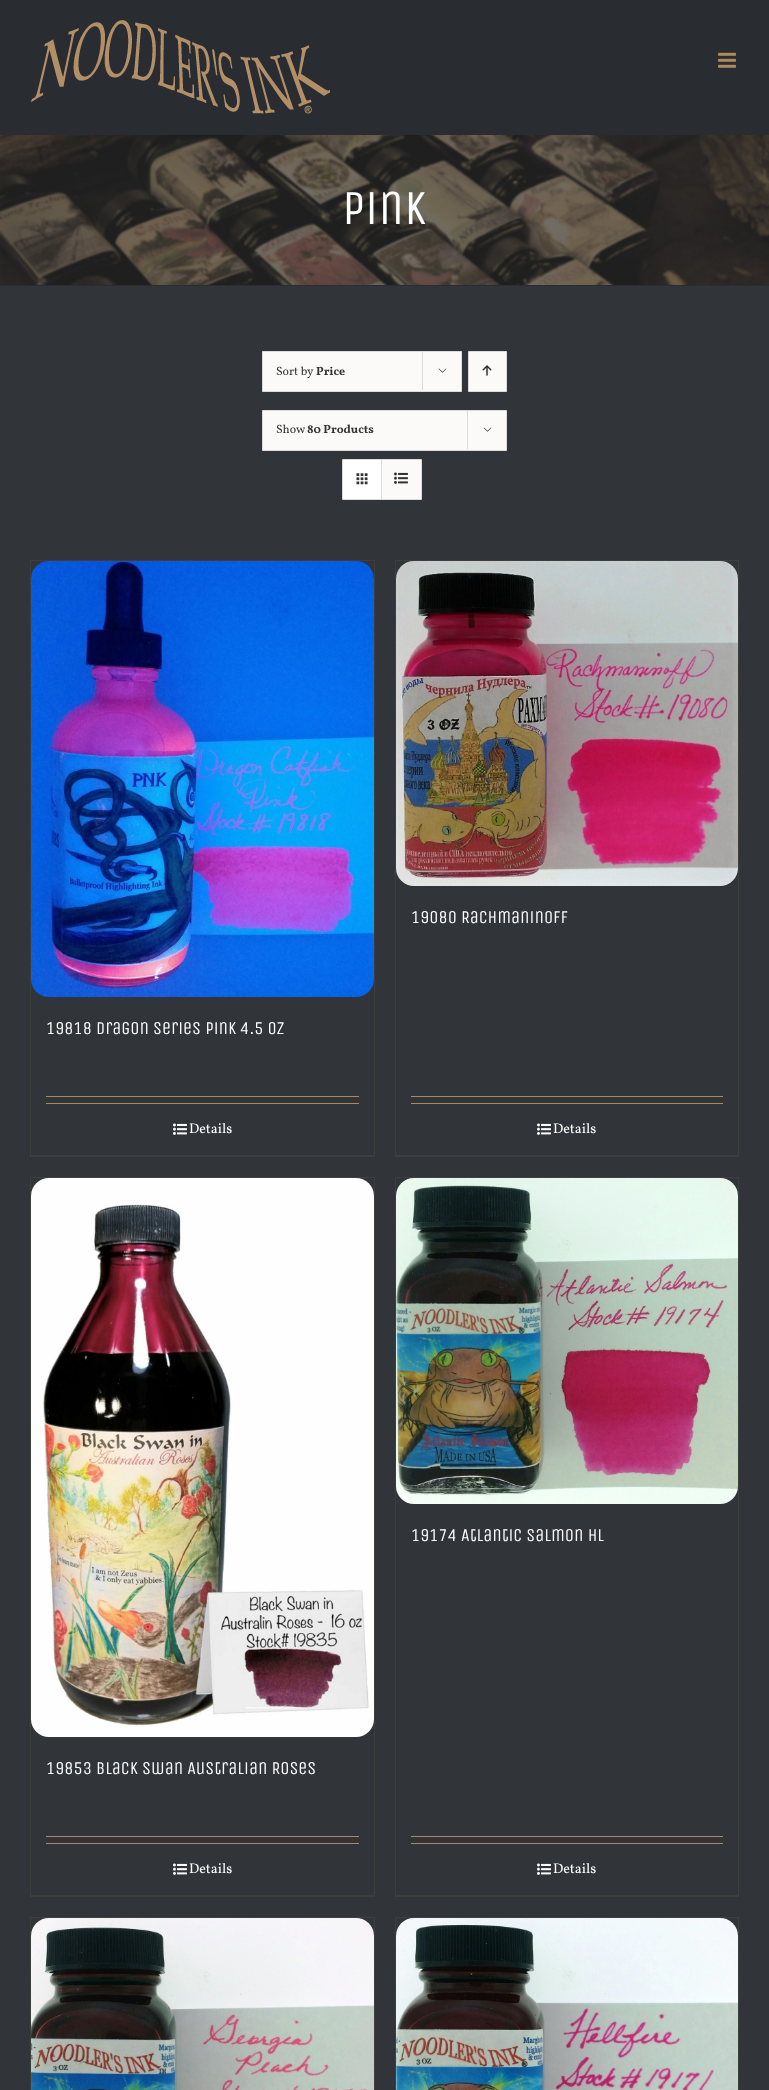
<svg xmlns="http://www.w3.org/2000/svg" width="769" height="2090">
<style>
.a{font:49px Unica One;fill:#fff}
.b{font:12px Vollkorn;fill:#333}
.c{font:bold 12px Vollkorn;fill:#333}
.d{font:18px Unica One;fill:#fff}
.e{font:14px Vollkorn;fill:#fff}
</style>
<rect width="100%" height="100%" fill="#313539"/>
<path fill="#292c30" d="M0 0h769v135H0z"/>
<image href="1.png" x="31" y="20" width="299" height="94"/>
<image href="2.png" x="718" y="52" width="18" height="16"/>
<image href="3.png" x="0" y="135" width="769" height="150"/>
<path fill="#292c30" d="M0 285h769v1H0z"/>
<path fill="#fbfaf9" stroke="#dbdbdb" d="M262.5 351.5h199v40H262.5z"/>
<path fill="#dbdbdb" d="M422 351h1v39H422z"/>
<image href="4.png" x="438" y="368" width="9" height="5"/>
<path fill="#fbfaf9" stroke="#dbdbdb" d="M468.5 351.5h38v40H468.5z"/>
<image href="5.png" x="482" y="365" width="10" height="11"/>
<path fill="#fbfaf9" stroke="#dbdbdb" d="M262.5 410.5h244v40H262.5z"/>
<path fill="#dbdbdb" d="M467 410h1v39H467z"/>
<image href="4.png" x="483" y="427" width="9" height="5"/>
<path fill="none" stroke="#dbdbdb" d="M342.5 459.5h79v40H342.5z"/>
<path fill="#fff" d="M343 460h38v39H343z"/>
<path fill="#dbdbdb" d="M381 460h1v39H381z"/>
<image href="6.png" x="356" y="473" width="12" height="12"/>
<path fill="#fbfaf9" d="M382 460h39v39H382z"/>
<image href="7.png" x="394" y="472" width="14" height="12"/>
<path fill="#3e3e3e" d="M30 560h345v1H30z"/>
<path fill="#3e3e3e" d="M374 560h1v597H374z"/>
<path fill="#3e3e3e" d="M30 1155h345v2H30z"/>
<path fill="#3e3e3e" d="M30 560h1v597H30z"/>
<image href="8.png" x="31" y="561" width="343" height="436"/>
<path fill="#ae895d" d="M46 1096h313v1H46z"/>
<path fill="#ae895d" d="M46 1103h313v1H46z"/>
<image href="9.png" x="173" y="1123" width="14" height="12"/>
<path fill="#3e3e3e" d="M395 560h344v1H395z"/>
<path fill="#3e3e3e" d="M738 560h1v597H738z"/>
<path fill="#3e3e3e" d="M395 1155h344v2H395z"/>
<path fill="#3e3e3e" d="M395 560h1v597H395z"/>
<image href="10.png" x="396" y="561" width="342" height="325"/>
<path fill="#ae895d" d="M411 1096h312v1H411z"/>
<path fill="#ae895d" d="M411 1103h312v1H411z"/>
<image href="9.png" x="537" y="1123" width="14" height="12"/>
<path fill="#3e3e3e" d="M30 1177h345v1H30z"/>
<path fill="#3e3e3e" d="M374 1177h1v720H374z"/>
<path fill="#3e3e3e" d="M30 1895h345v2H30z"/>
<path fill="#3e3e3e" d="M30 1177h1v720H30z"/>
<image href="11.png" x="31" y="1178" width="343" height="559"/>
<path fill="#ae895d" d="M46 1836h313v1H46z"/>
<path fill="#ae895d" d="M46 1843h313v1H46z"/>
<image href="9.png" x="173" y="1863" width="14" height="12"/>
<path fill="#3e3e3e" d="M395 1177h344v1H395z"/>
<path fill="#3e3e3e" d="M738 1177h1v720H738z"/>
<path fill="#3e3e3e" d="M395 1895h344v2H395z"/>
<path fill="#3e3e3e" d="M395 1177h1v720H395z"/>
<image href="12.png" x="396" y="1178" width="342" height="326"/>
<path fill="#ae895d" d="M411 1836h312v1H411z"/>
<path fill="#ae895d" d="M411 1843h312v1H411z"/>
<image href="9.png" x="537" y="1863" width="14" height="12"/>
<path fill="#3e3e3e" d="M30 1917h345v1H30z"/>
<path fill="#3e3e3e" d="M374 1917h1v173H374z"/>
<path fill="#3e3e3e" d="M30 1917h1v173H30z"/>
<image href="13.png" x="31" y="1918" width="343" height="172"/>
<path fill="#3e3e3e" d="M395 1917h344v1H395z"/>
<path fill="#3e3e3e" d="M738 1917h1v173H738z"/>
<path fill="#3e3e3e" d="M395 1917h1v173H395z"/>
<image href="14.png" x="396" y="1918" width="342" height="172"/>
<text class="a" x="342" y="224">Pink</text>
<text class="b" x="276" y="375">Sort by</text>
<text class="c" x="316" y="375">Price</text>
<text class="b" x="276" y="433">Show</text>
<text class="c" x="307" y="433">80 Products</text>
<text class="d" x="46" y="1034">19818 Dragon Series Pink 4.5 oz</text>
<text class="e" x="189" y="1133">Details</text>
<text class="d" x="411" y="923">19080 Rachmaninoff</text>
<text class="e" x="553" y="1133">Details</text>
<text class="d" x="46" y="1774">19853 Black Swan Australian Roses</text>
<text class="e" x="189" y="1873">Details</text>
<text class="d" x="411" y="1541">19174 Atlantic Salmon HL</text>
<text class="e" x="553" y="1873">Details</text>
</svg>
